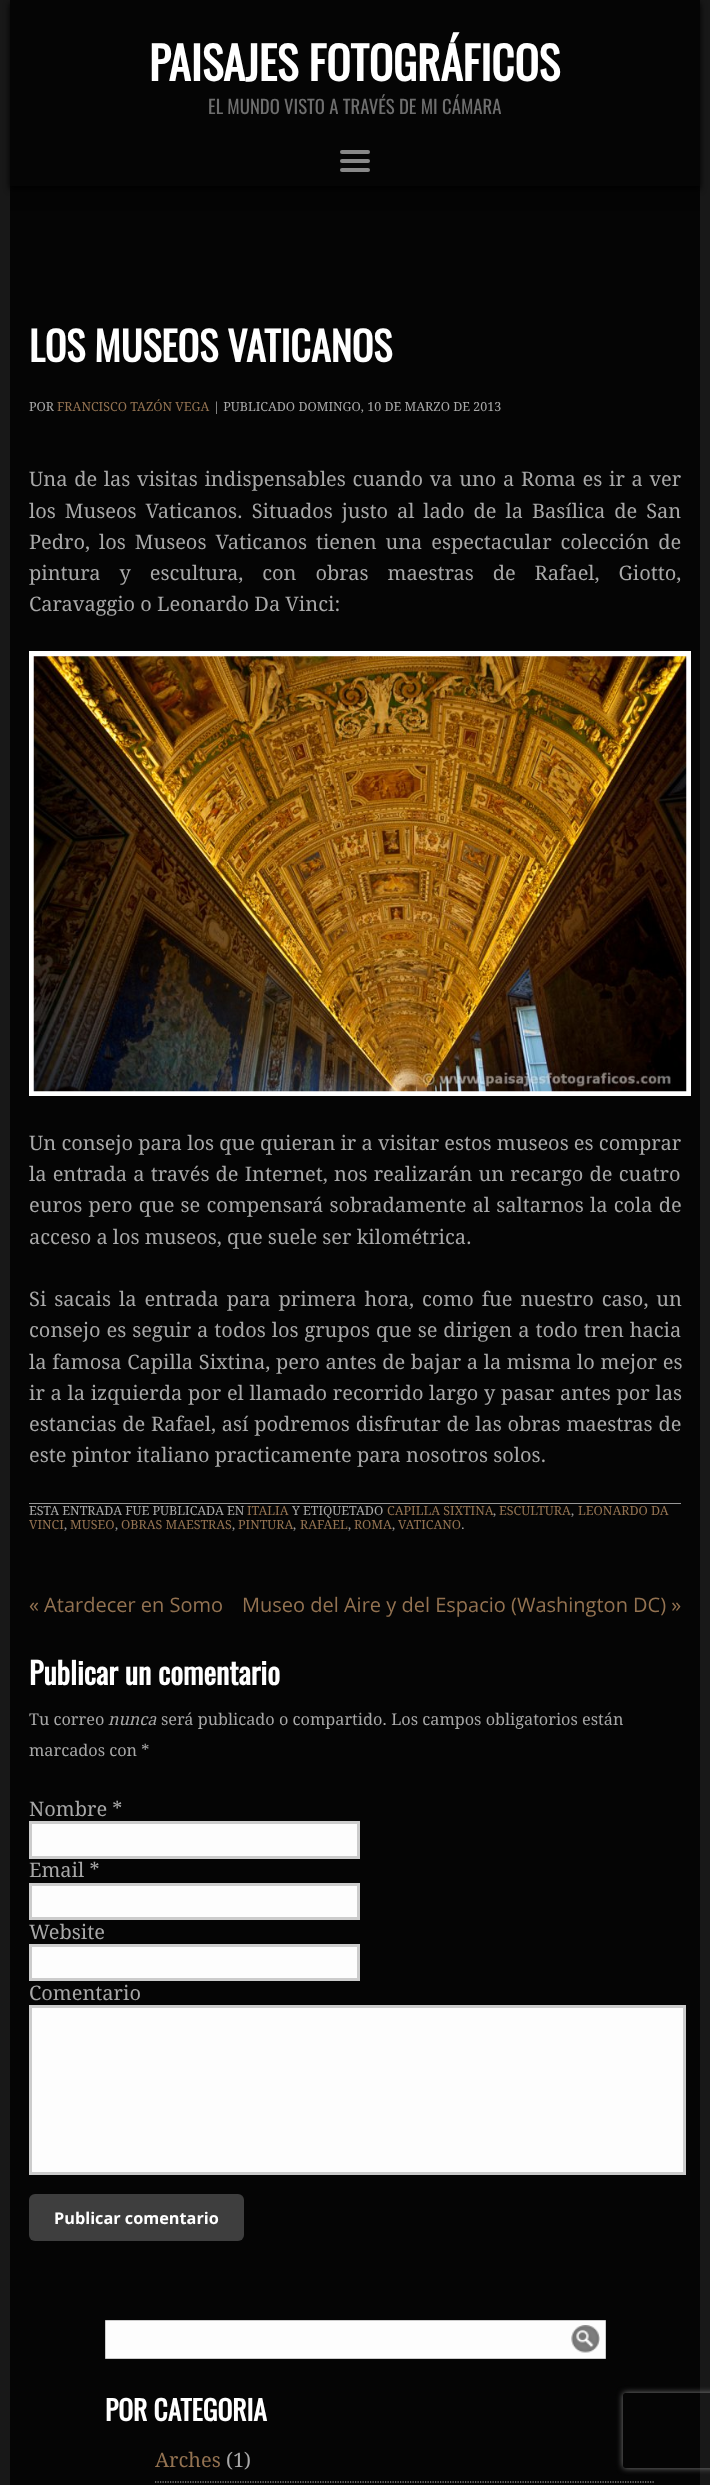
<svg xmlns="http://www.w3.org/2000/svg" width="710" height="2485">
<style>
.a{font:bold 45px Oswald;fill:#fff}
.b{font:18.75px Oswald;fill:#6e6e6e}
.c{font:bold 40px Oswald;fill:#fff}
.d{font:12.5px Droid Serif;fill:#a8a8a8}
.e{font:12.5px Droid Serif;fill:#937251}
.f{font:20px Droid Serif;fill:#a8a8a8}
.g{font:20px Open Sans;fill:#937251}
.h{font:bold 30px Oswald;fill:#fff}
.i{font:16.25px Droid Serif;fill:#a8a8a8}
.j{font:italic 16.25px Droid Serif;fill:#a8a8a8}
.k{font:bold 16.25px Open Sans;fill:#fff}
.l{font:bold 27.5px Oswald;fill:#fff}
.m{font:20px Droid Serif;fill:#937251}
</style>
<defs>
<clipPath id="clip1"><path d="M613 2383h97v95h-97zm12.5 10h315c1.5 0 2.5 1 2.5 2.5v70c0 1.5-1 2.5-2.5 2.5h-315c-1.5 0-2.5-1-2.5-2.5v-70c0-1.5 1-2.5 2.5-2.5z" clip-rule="evenodd"/></clipPath>
</defs>
<rect width="100%" height="100%" fill="#181818"/>
<path fill="#000" filter="blur(3px)" d="M10 3h690v186H10z"/>
<path fill="#050505" d="M10 0h690v186H10z"/>
<rect fill="#888" x="340" y="150" width="30" height="4" rx="2"/>
<rect fill="#888" x="340" y="159" width="30" height="4" rx="2"/>
<rect fill="#888" x="340" y="168" width="30" height="4" rx="2"/>
<path fill="#000000cc" d="M10 186h690v25H10z"/>
<path fill="#050505" d="M10 211h690v2274H10z"/>
<path fill="#fff" d="M29 651h662v445H29z"/>
<image href="1.png" x="33" y="656" width="654" height="436"/>
<path fill="#999" d="M29 1503h652v1H29z"/>
<path fill="#fdfdfd" stroke="#ccc" stroke-width="3" d="M30.5 1822.5h328v35H30.5z"/>
<path fill="#fdfdfd" stroke="#ccc" stroke-width="3" d="M30.5 1884.5h328v34H30.5z"/>
<path fill="#fdfdfd" stroke="#ccc" stroke-width="3" d="M30.5 1945.5h328v34H30.5z"/>
<path fill="#fdfdfd" stroke="#ccc" stroke-width="3" d="M30.5 2006.5h654v167H30.5z"/>
<rect fill="#3e3e3e" x="29" y="2194" width="215" height="47" rx="6"/>
<path fill="#fdfdfd" stroke="#ccc" d="M105.5 2320.5h500v38H105.5z"/>
<image href="2.png" x="571" y="2325" width="29" height="28"/>
<path fill="none" stroke="#ccc" stroke-width="1.2" stroke-dasharray="1.25 1.25" d="M155 2482h500"/>
<g clip-path="url(#clip1)">
<rect fill="#808080" filter="blur(3px)" x="623" y="2393" width="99" height="75" rx="2.5"/>
</g>
<text class="a" x="149" y="81">PAISAJES FOTOGRÁFICOS</text>
<text class="b" x="208" y="114">EL MUNDO VISTO A TRAVÉS DE MI CÁMARA</text>
<text class="c" x="29" y="362">LOS MUSEOS VATICANOS</text>
<text class="d" x="29" y="411">POR</text>
<text class="e" x="57" y="411">FRANCISCO TAZÓN VEGA</text>
<text class="d" x="213" y="411">| PUBLICADO DOMINGO, 10 DE MARZO DE 2013</text>
<text class="f" x="29" y="486" word-spacing="1.5">Una de las visitas indispensables cuando va uno a Roma es ir a ver</text>
<text class="f" x="29" y="518" word-spacing="3.75">los Museos Vaticanos. Situados justo al lado de la Basílica de San</text>
<text class="f" x="29" y="549" word-spacing="3.75">Pedro, los Museos Vaticanos tienen una espectacular colección de</text>
<text class="f" x="29" y="580" word-spacing="13.75">pintura y escultura, con obras maestras de Rafael, Giotto,</text>
<text class="f" x="29" y="611">Caravaggio o Leonardo Da Vinci:</text>
<text class="f" x="29" y="1150">Un consejo para los que quieran ir a visitar estos museos es comprar</text>
<text class="f" x="29" y="1181" word-spacing="1">la entrada a través de Internet, nos realizarán un recargo de cuatro</text>
<text class="f" x="29" y="1212" word-spacing="1">euros pero que se compensará sobradamente al saltarnos la cola de</text>
<text class="f" x="29" y="1244">acceso a los museos, que suele ser kilométrica.</text>
<text class="f" x="29" y="1306" word-spacing="2.75">Si sacais la entrada para primera hora, como fue nuestro caso, un</text>
<text class="f" x="29" y="1337" word-spacing="0.75">consejo es seguir a todos los grupos que se dirigen a todo tren hacia</text>
<text class="f" x="29" y="1369" word-spacing="0.5">la famosa Capilla Sixtina, pero antes de bajar a la misma lo mejor es</text>
<text class="f" x="29" y="1400" word-spacing="0.5">ir a la izquierda por el llamado recorrido largo y pasar antes por las</text>
<text class="f" x="29" y="1431" word-spacing="0.6">estancias de Rafael, así podremos disfrutar de las obras maestras de</text>
<text class="f" x="29" y="1462">este pintor italiano practicamente para nosotros solos.</text>
<text class="d" x="29" y="1515">ESTA ENTRADA FUE PUBLICADA EN</text>
<text class="e" x="247" y="1515">ITALIA</text>
<text class="d" x="292" y="1515">Y ETIQUETADO</text>
<text class="e" x="387" y="1515">CAPILLA SIXTINA</text>
<text class="d" x="493" y="1515">,</text>
<text class="e" x="499" y="1515">ESCULTURA</text>
<text class="d" x="571" y="1515">,</text>
<text class="e" x="578" y="1515">LEONARDO DA</text>
<text class="e" x="29" y="1529">VINCI</text>
<text class="d" x="64" y="1529">,</text>
<text class="e" x="70" y="1529">MUSEO</text>
<text class="d" x="115" y="1529">,</text>
<text class="e" x="121" y="1529">OBRAS MAESTRAS</text>
<text class="d" x="232" y="1529">,</text>
<text class="e" x="238" y="1529">PINTURA</text>
<text class="d" x="293" y="1529">,</text>
<text class="e" x="300" y="1529">RAFAEL</text>
<text class="d" x="348" y="1529">,</text>
<text class="e" x="354" y="1529">ROMA</text>
<text class="d" x="392" y="1529">,</text>
<text class="e" x="398" y="1529">VATICANO</text>
<text class="d" x="461" y="1529">.</text>
<text class="g" x="29" y="1612">« Atardecer en Somo</text>
<text class="g" x="242" y="1612">Museo del Aire y del Espacio (Washington DC) »</text>
<text class="h" x="29" y="1685">Publicar un comentario</text>
<text class="i" x="29" y="1725">Tu correo</text>
<text class="j" x="108" y="1725">nunca</text>
<text class="i" x="161" y="1725">será publicado o compartido. Los campos obligatorios están</text>
<text class="i" x="29" y="1756">marcados con *</text>
<text class="f" x="29" y="1816">Nombre *</text>
<text class="f" x="29" y="1877">Email *</text>
<text class="f" x="29" y="1939">Website</text>
<text class="f" x="29" y="2000">Comentario</text>
<text class="k" x="54" y="2224">Publicar comentario</text>
<text class="l" x="105" y="2421">POR CATEGORIA</text>
<text class="m" x="155" y="2467">Arches</text>
<text class="f" x="226" y="2467">(1)</text>
</svg>
